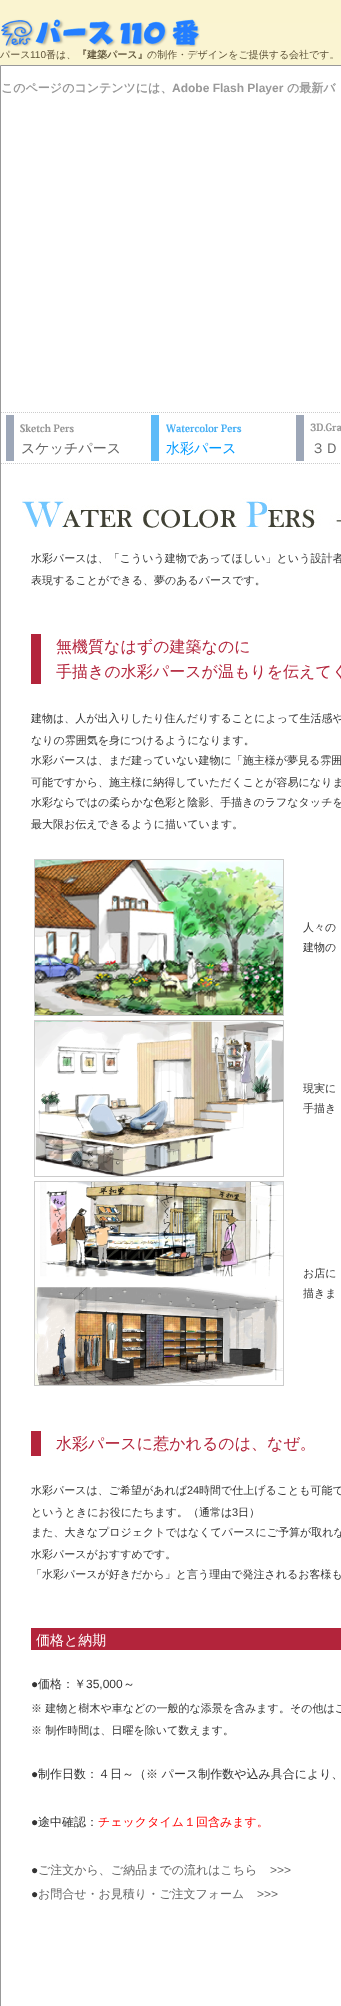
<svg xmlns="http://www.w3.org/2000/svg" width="341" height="2006">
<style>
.a{font:500 10px WenQuanYi Zen Hei;fill:#5f543a}
.b{font:10px Liberation Sans;fill:#5f543a}
.c{font:bold 10px WenQuanYi Zen Hei;fill:#5f543a}
.d{font:bold 12px WenQuanYi Zen Hei;fill:#999}
.e{font:bold 12px Liberation Sans;fill:#999}
.f{font:500 14px WenQuanYi Zen Hei;fill:#666}
.g{font:500 14px WenQuanYi Zen Hei;fill:#09f}
.h{font:500 11px WenQuanYi Zen Hei;fill:#333}
.i{font:500 16px WenQuanYi Zen Hei;fill:#b3243b}
.j{font:11px Liberation Sans;fill:#333}
.k{font:500 14px WenQuanYi Zen Hei;fill:#fff}
.l{font:12px Liberation Sans;fill:#333}
.m{font:500 12px WenQuanYi Zen Hei;fill:#333}
.n{font:500 12px WenQuanYi Zen Hei;fill:#f00}
.o{font:500 12px WenQuanYi Zen Hei;fill:#666}
.p{font:12px Liberation Sans;fill:#666}
</style>
<rect width="100%" height="100%" fill="#fff"/>
<image href="1.png" x="0" y="0" width="341" height="65"/>
<image href="2.png" x="1" y="19" width="199" height="28"/>
<path fill="none" stroke="#999" d="M0.5 65.5h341v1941H0.5z"/>
<path fill="none" stroke="#ccc" stroke-dasharray="1 1" d="M1 412.5h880"/>
<path fill="none" stroke="#ccc" stroke-dasharray="1 1" d="M1 463.5h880"/>
<image href="3.png" x="6" y="415" width="68" height="46"/>
<image href="4.png" x="151" y="415" width="91" height="46"/>
<image href="5.png" x="296" y="415" width="45" height="46"/>
<image href="6.png" x="22" y="498" width="319" height="31"/>
<path fill="#b3243b" d="M31 634h10v50H31z"/>
<image href="7.png" x="34" y="859" width="250" height="157"/>
<image href="8.png" x="34" y="1020" width="250" height="157"/>
<image href="9.png" x="34" y="1181" width="250" height="205"/>
<path fill="#b3243b" d="M31 1431h10v25H31z"/>
<path fill="#b3243b" d="M31 1628h310v22H31z"/>
<text class="a" x="0" y="58">パース</text>
<text class="b" x="30" y="58">110</text>
<text class="a" x="46" y="58">番は、</text>
<text class="c" x="77" y="58">『建築パース』</text>
<text class="a" x="147" y="58">の制作・デザインをご提供する会社です。</text>
<text class="d" x="1" y="92">このページのコンテンツには、</text>
<text class="e" x="172" y="92">Adobe Flash Player</text>
<text class="d" x="287" y="92">の最新バ</text>
<text class="f" x="21" y="453">スケッチパース</text>
<text class="g" x="166" y="453">水彩パース</text>
<text class="f" x="311" y="453">３Ｄ</text>
<text class="h" x="31" y="562">水彩パースは、「こういう建物であってほしい」という設計者</text>
<text class="h" x="31" y="584">表現することができる、夢のあるパースです。</text>
<text class="i" x="56" y="652">無機質なはずの建築なのに</text>
<text class="i" x="56" y="677">手描きの水彩パースが温もりを伝えてく</text>
<text class="h" x="31" y="722">建物は、人が出入りしたり住んだりすることによって生活感や</text>
<text class="h" x="31" y="744">なりの雰囲気を身につけるようになります。</text>
<text class="h" x="31" y="764">水彩パースは、まだ建っていない建物に「施主様が夢見る雰囲</text>
<text class="h" x="31" y="786">可能ですから、施主様に納得していただくことが容易になりま</text>
<text class="h" x="31" y="806">水彩ならではの柔らかな色彩と陰影、手描きのラフなタッチを</text>
<text class="h" x="31" y="828">最大限お伝えできるように描いています。</text>
<text class="h" x="303" y="931">人々の</text>
<text class="h" x="303" y="951">建物の</text>
<text class="h" x="303" y="1092">現実に</text>
<text class="h" x="303" y="1112">手描き</text>
<text class="h" x="303" y="1277">お店に</text>
<text class="h" x="303" y="1297">描きま</text>
<text class="i" x="56" y="1449">水彩パースに惹かれるのは、なぜ。</text>
<text class="h" x="31" y="1494">水彩パースは、ご希望があれば</text>
<text class="j" x="187" y="1494">24</text>
<text class="h" x="199" y="1494">時間で仕上げることも可能で</text>
<text class="h" x="31" y="1516">というときにお役にたちます。（通常は</text>
<text class="j" x="232" y="1516">3</text>
<text class="h" x="238" y="1516">日）</text>
<text class="h" x="31" y="1536">また、大きなプロジェクトではなくてパースにご予算が取れな</text>
<text class="h" x="31" y="1558">水彩パースがおすすめです。</text>
<text class="h" x="31" y="1578">「水彩パースが好きだから」と言う理由で発注されるお客様も</text>
<text class="k" x="36" y="1645">価格と納期</text>
<text class="l" x="31" y="1688">●</text>
<text class="m" x="38" y="1688">価格：￥</text>
<text class="l" x="86" y="1688">35,000</text>
<text class="m" x="123" y="1688">～</text>
<text class="h" x="31" y="1712">※ 建物と樹木や車などの一般的な添景を含みます。その他はご</text>
<text class="h" x="31" y="1734">※ 制作時間は、日曜を除いて数えます。</text>
<text class="l" x="31" y="1778">●</text>
<text class="m" x="38" y="1778">制作日数：４日～（※ パース制作数や込み具合により、</text>
<text class="l" x="31" y="1826">●</text>
<text class="m" x="38" y="1826">途中確認：</text>
<text class="n" x="98" y="1826">チェックタイム１回含みます。</text>
<text class="l" x="31" y="1874">●</text>
<text class="o" x="38" y="1874">ご注文から、ご納品までの流れはこちら</text>
<text class="p" x="270" y="1874">&gt;&gt;&gt;</text>
<text class="l" x="31" y="1898">●</text>
<text class="o" x="38" y="1898">お問合せ・お見積り・ご注文フォーム</text>
<text class="p" x="257" y="1898">&gt;&gt;&gt;</text>
</svg>
